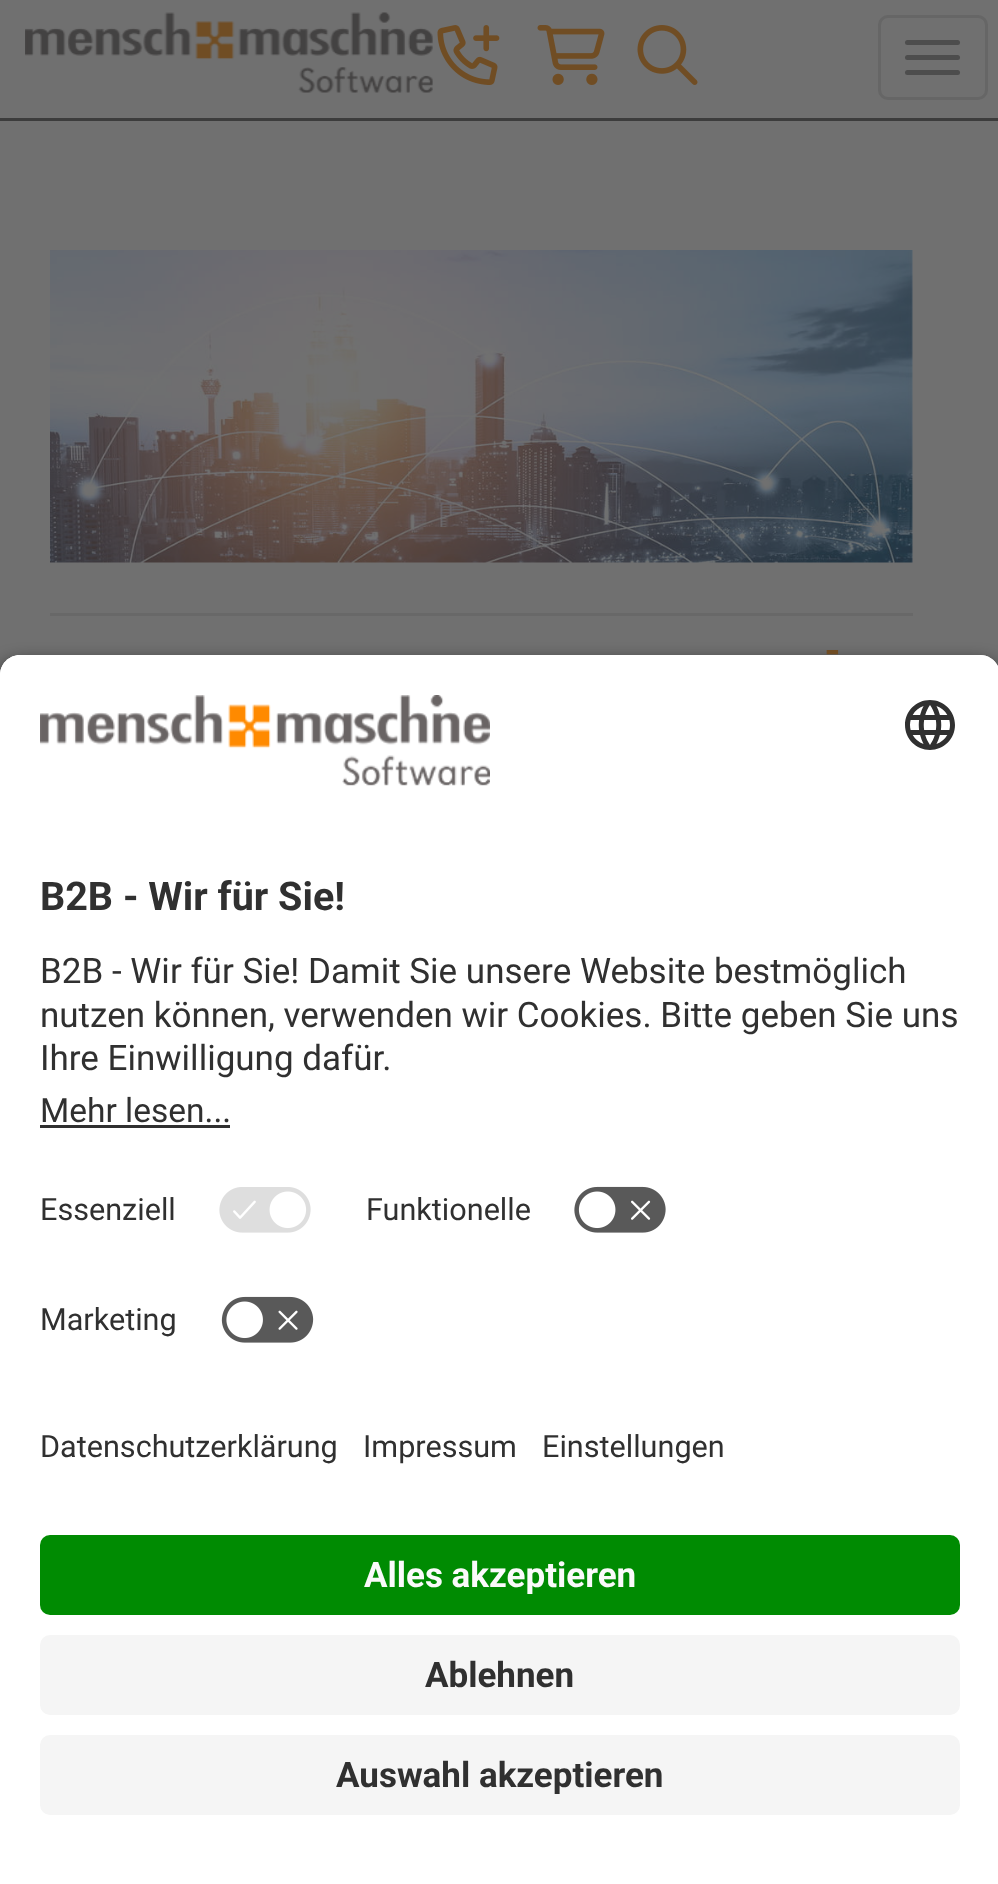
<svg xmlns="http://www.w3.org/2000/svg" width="998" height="1884">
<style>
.a{font:bold 42px Open Sans;fill:#704d24}
.b{font:bold 39.5px Roboto;fill:#303030}
.c{font:35px Roboto;fill:#303030}
.d{font:33.5px Roboto;fill:#303030}
.e{font:30.6px Roboto;fill:#303030}
.f{font:bold 35px Roboto;fill:#fafafa}
.g{font:bold 35px Roboto;fill:#303030}
</style>
<rect width="100%" height="100%" fill="#707070"/>
<path fill="#3c3c3c" d="M0 118h998v3H0z"/>
<image href="1.png" x="25" y="12" width="408" height="81"/>
<rect fill="none" stroke="#666" stroke-width="3" x="879.5" y="16.5" width="107" height="82" rx="8.5"/>
<rect fill="#4d4d4d" x="905" y="40" width="55" height="5" rx="2.5"/>
<rect fill="#4d4d4d" x="905" y="55" width="55" height="5" rx="2.5"/>
<rect fill="#4d4d4d" x="905" y="70" width="55" height="5" rx="2.5"/>
<image href="2.png" x="437" y="25" width="63" height="60"/>
<image href="3.png" x="537" y="25" width="68" height="60"/>
<image href="4.png" x="637" y="25" width="61" height="60"/>
<image href="5.png" x="50" y="250" width="863" height="313"/>
<path fill="#686868" d="M50 613h863v3H50z"/>
<rect fill="#000000cc" filter="blur(9px)" y="663" width="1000" height="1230" rx="20"/>
<path fill="#fff" d="M20 655h960c11 0 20 9 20 20v715h-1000v-715c0-11 9-20 20-20z"/>
<path fill="#fff" d="M20 655h960c11 0 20 9 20 20v495h-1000v-495c0-11 9-20 20-20z"/>
<image href="6.png" x="40" y="695" width="450" height="91"/>
<image href="7.png" x="905" y="700" width="50" height="50"/>
<path fill="#303030" d="M40 1125h190v3H40z"/>
<image href="8.png" x="219" y="1187" width="92" height="46"/>
<image href="9.png" x="574" y="1186" width="92" height="47"/>
<image href="10.png" x="221" y="1296" width="93" height="47"/>
<path fill="#fff" d="M0 1390h998v494H0z"/>
<rect fill="#008b02" x="40" y="1535" width="920" height="80" rx="10"/>
<rect fill="#f5f5f5" x="40" y="1635" width="920" height="80" rx="10"/>
<rect fill="#f5f5f5" x="40" y="1735" width="920" height="80" rx="10"/>
<text class="a" x="825" y="664">-</text>
<text class="b" x="40" y="910">B2B - Wir für Sie!</text>
<text class="c" x="40" y="983">B2B - Wir für Sie! Damit Sie unsere Website bestmöglich</text>
<text class="c" x="40" y="1027">nutzen können, verwenden wir Cookies. Bitte geben Sie uns</text>
<text class="c" x="40" y="1070">Ihre Einwilligung dafür.</text>
<text class="d" x="40" y="1122">Mehr lesen...</text>
<text class="e" x="40" y="1220">Essenziell</text>
<text class="e" x="366" y="1220">Funktionelle</text>
<text class="e" x="40" y="1330">Marketing</text>
<text class="e" x="40" y="1457">Datenschutzerklärung</text>
<text class="e" x="363" y="1457">Impressum</text>
<text class="e" x="542" y="1457">Einstellungen</text>
<text class="f" x="364" y="1587">Alles akzeptieren</text>
<text class="g" x="425" y="1687">Ablehnen</text>
<text class="g" x="336" y="1787">Auswahl akzeptieren</text>
</svg>
